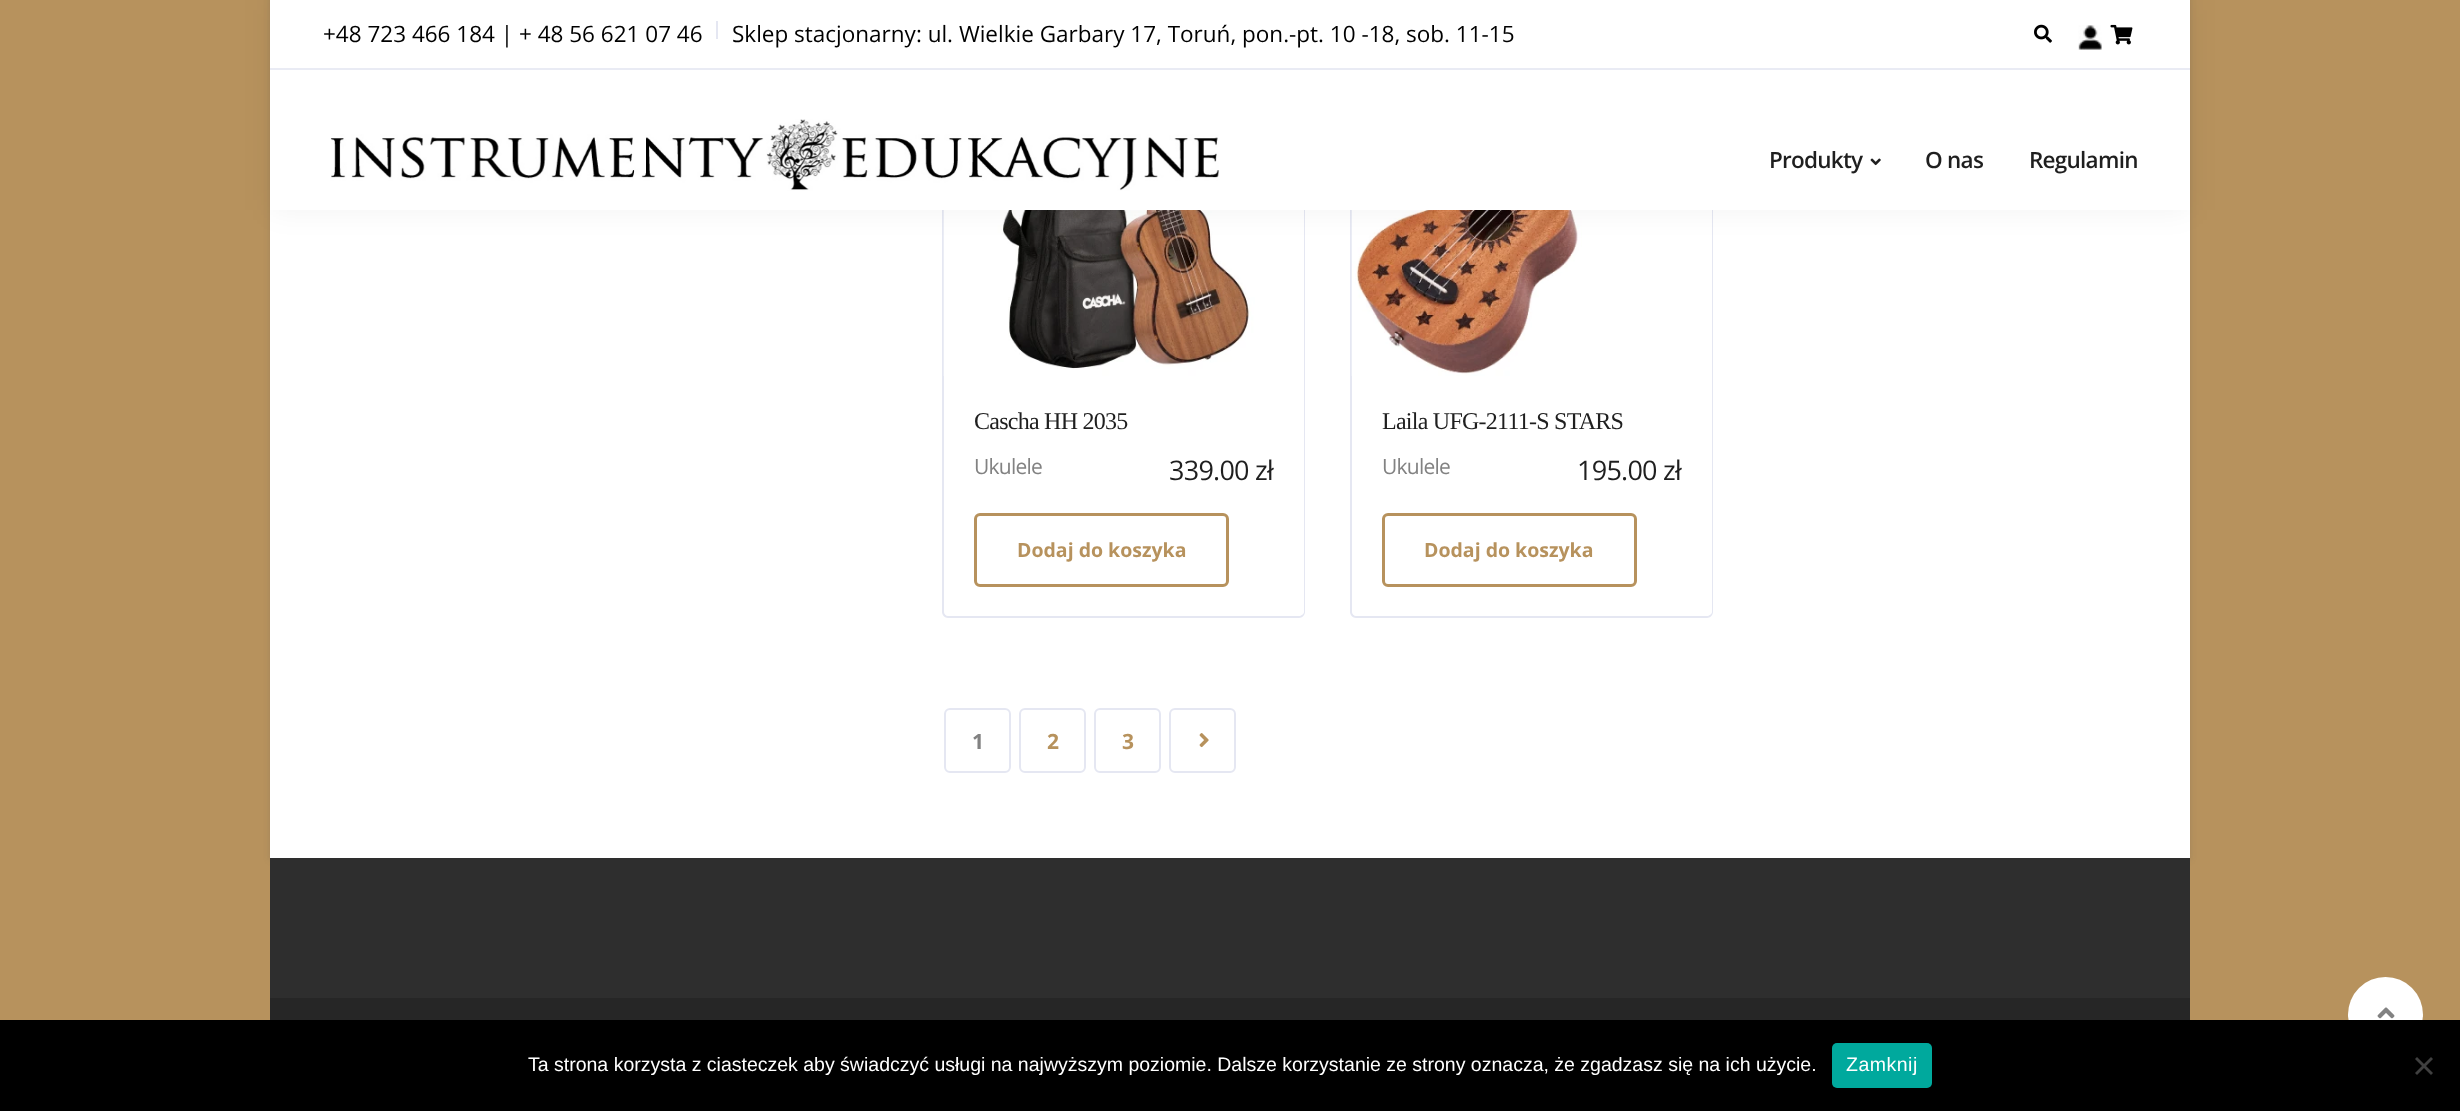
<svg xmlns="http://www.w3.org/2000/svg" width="2460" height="1111">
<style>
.a{font:22.5px Open Sans;fill:#000}
.b{font:600 22.5px Open Sans;letter-spacing:-0.75px;fill:#1f1f1f}
.c{font:24px Liberation Serif;letter-spacing:-0.75px;fill:#1f1f1f}
.d{font:21px Open Sans;letter-spacing:-0.75px;fill:#828282}
.e{font:27px Open Sans;letter-spacing:-0.75px;fill:#1f1f1f}
.f{font:bold 19.5px Open Sans;fill:#b7925d}
.g{font:bold 21px Open Sans;letter-spacing:-0.75px;fill:#828282}
.h{font:bold 21px Open Sans;letter-spacing:-0.75px;fill:#b7925d}
.i{font:19.5px Liberation Sans;fill:#fff}
.j{font:19.5px Liberation Sans;letter-spacing:0.5px;fill:#fff}
</style>
<rect width="100%" height="100%" fill="#b7925d"/>
<path fill="#3d42502e" filter="blur(3px)" d="M270 -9h1920v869H270z"/>
<path fill="#fff" d="M270 210h1920v648H270z"/>
<path fill="#e5e7f2" fill-rule="evenodd" d="M948 16h351c3 0 6 3 6 6v354h-363v-354c0-3 3-6 6-6zm0 2h351c2 0 5 2 5 4v354h-360v-354c0-2 2-4 4-4z"/>
<image href="6.png" x="943" y="210" width="360" height="166"/>
<path fill="#e5e7f2" fill-rule="evenodd" d="M1356 16h351c3 0 6 3 6 6v354h-363v-354c0-3 3-6 6-6zm0 2h351c2 0 5 2 5 4v354h-360v-354c0-2 2-4 4-4z"/>
<image href="7.png" x="1351" y="210" width="360" height="166"/>
<path fill="#0000000d" filter="blur(15px)" d="M270 0h1920v210H270z"/>
<path fill="#fff" d="M270 0h1920v210H270z"/>
<path fill="#e9ebf4" d="M270 68h1920v2H270z"/>
<path fill="#e5e7f2" d="M716 21h2v18H716z"/>
<image href="1.png" x="2034" y="24" width="18" height="19"/>
<image href="2.png" x="2078" y="25" width="24" height="25"/>
<image href="3.png" x="2110" y="24" width="23" height="21"/>
<image href="4.png" x="330" y="119" width="889" height="72"/>
<image href="5.png" x="1870" y="158" width="11" height="8"/>
<path fill="#e5e7f2" fill-rule="evenodd" d="M942 376h363v236c0 3-3 6-6 6h-351c-3 0-6-3-6-6zm2 0h360v236c0 2-3 4-5 4h-351c-2 0-4-2-4-4z"/>
<rect fill="none" stroke="#b7925d" stroke-width="3" x="975.5" y="514.5" width="252" height="71" rx="4.5"/>
<path fill="#e5e7f2" fill-rule="evenodd" d="M1350 376h363v236c0 3-3 6-6 6h-351c-3 0-6-3-6-6zm2 0h360v236c0 2-3 4-5 4h-351c-2 0-4-2-4-4z"/>
<rect fill="none" stroke="#b7925d" stroke-width="3" x="1383.5" y="514.5" width="252" height="71" rx="4.5"/>
<rect fill="none" stroke="#e5e7f2" stroke-width="2" x="945" y="709" width="65" height="63" rx="5"/>
<rect fill="none" stroke="#e5e7f2" stroke-width="2" x="1020" y="709" width="65" height="63" rx="5"/>
<rect fill="none" stroke="#e5e7f2" stroke-width="2" x="1095" y="709" width="65" height="63" rx="5"/>
<rect fill="none" stroke="#e5e7f2" stroke-width="2" x="1170" y="709" width="65" height="63" rx="5"/>
<image href="8.png" x="1199" y="733" width="10" height="15"/>
<path fill="#2e2e2e" d="M270 858h1920v140H270z"/>
<path fill="#262626" d="M270 998h1920v22H270z"/>
<circle fill="#fff" cx="2385.5" cy="1014.5" r="37.5"/>
<image href="9.png" x="2377" y="1007" width="18" height="12"/>
<path fill="#000" d="M0 1020h2460v91H0z"/>
<rect fill="#00a99d" x="1832" y="1043" width="100" height="45" rx="5"/>
<path fill="#404040" d="M2431 1057l2 2l-16 16l-2-2z"/>
<path fill="#404040" d="M2415 1059l2-2l16 16l-2 2z"/>
<text class="a" x="323" y="42">+48 723 466 184 | + 48 56 621 07 46</text>
<text class="a" x="732" y="42">Sklep stacjonarny: ul. Wielkie Garbary 17, Toruń, pon.-pt. 10 -18, sob. 11-15</text>
<text class="b" x="1769" y="168">Produkty</text>
<text class="b" x="1925" y="168">O nas</text>
<text class="b" x="2029" y="168">Regulamin</text>
<text class="c" x="974" y="429">Cascha HH 2035</text>
<text class="d" x="974" y="474">Ukulele</text>
<text class="e" x="1169" y="480">339.00 zł</text>
<text class="f" x="1017" y="557">Dodaj do koszyka</text>
<text class="c" x="1382" y="429">Laila UFG-2111-S STARS</text>
<text class="d" x="1382" y="474">Ukulele</text>
<text class="e" x="1577" y="480">195.00 zł</text>
<text class="f" x="1424" y="557">Dodaj do koszyka</text>
<text class="g" x="972" y="749">1</text>
<text class="h" x="1047" y="749">2</text>
<text class="h" x="1122" y="749">3</text>
<text class="i" x="528" y="1071">Ta strona korzysta z ciasteczek aby świadczyć usługi na najwyższym poziomie. Dalsze korzystanie ze strony oznacza, że zgadzasz się na ich użycie.</text>
<text class="j" x="1846" y="1071">Zamknij</text>
</svg>
